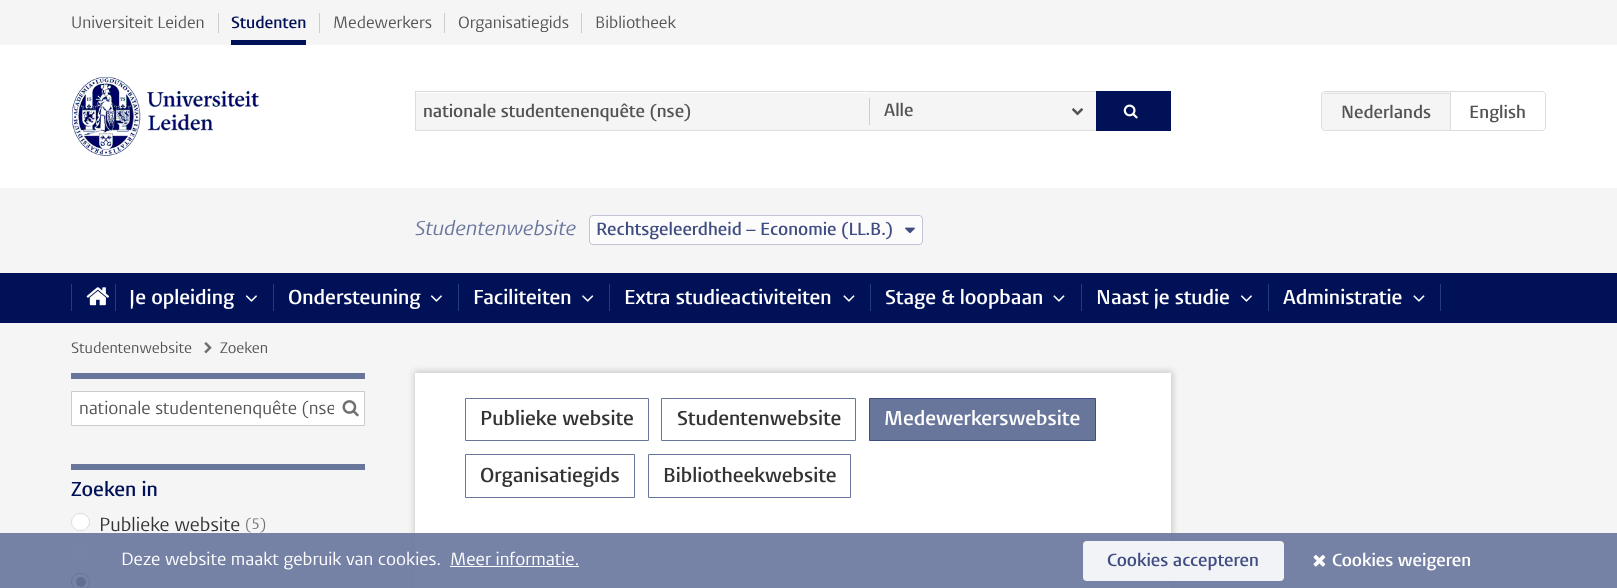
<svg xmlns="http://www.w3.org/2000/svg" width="1617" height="588">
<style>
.a{font:16.25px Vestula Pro;fill:#535353}
.b{font:600 16.25px Vestula Pro;fill:#001158}
.c{font:600 17.5px Vestula Pro;fill:#535353}
.d{font:italic 20px Vestula Pro;fill:#68769c}
.e{font:600 17.5px Vestula Pro;fill:#404d82}
.f{font:600 20px Vestula Pro;fill:#fff}
.g{font:15px Vestula Pro;fill:#535353}
.h{font:17.5px Vestula Pro;fill:#535353}
.i{font:600 20px Vestula Pro;fill:#001158}
.j{font:18.75px Vestula Pro;fill:#333}
.k{font:15px Vestula Pro;fill:#707070}
.l{font:600 20px Vestula Pro;fill:#333}
.m{font:17.5px Vestula Pro;fill:#fff}
.n{font:600 17.5px Vestula Pro;fill:#fff}
</style>
<defs>
<clipPath id="clip1"><rect x="71" y="573" width="19" height="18" rx="9"/></clipPath>
<radialGradient id="g1" gradientUnits="userSpaceOnUse" cx="64" cy="582" r="11"><stop offset="0.4" stop-color="#333"/><stop offset="0.5" stop-color="#fff"/><stop offset="1" stop-color="#fff"/></radialGradient>
<radialGradient id="g2" gradientUnits="userSpaceOnUse" cx="81" cy="582" r="11"><stop offset="0.4" stop-color="#333"/><stop offset="0.5" stop-color="#fff"/><stop offset="1" stop-color="#fff"/></radialGradient>
<clipPath id="clip2"><path d="M79 396h255v24H79z"/></clipPath>
</defs>
<rect width="100%" height="100%" fill="#f5f5f5"/>
<path fill="#fff" d="M0 45h1617v143H0z"/>
<path fill="#ccc" d="M218 13h1v20H218z"/>
<path fill="#ccc" d="M319 13h1v20H319z"/>
<path fill="#001158" d="M231 40h75v5H231z"/>
<path fill="#ccc" d="M444 13h1v20H444z"/>
<path fill="#ccc" d="M581 13h1v20H581z"/>
<image href="1.png" x="72" y="77" width="187" height="79"/>
<path fill="#f5f5f5" d="M416 93h453v37H416z"/>
<path fill="#ddd" d="M415 91h681v1H415z"/>
<path fill="#ddd" d="M415 130h681v1H415z"/>
<path fill="#ddd" d="M415 91h1v40H415z"/>
<path fill="#f5f5f5" d="M869 92h227v38H869z"/>
<path fill="#ccc" d="M869 98h1v27H869z"/>
<image href="2.png" x="1071" y="108" width="13" height="8"/>
<path fill="#001158" d="M1096 91h75v40H1096z"/>
<image href="3.png" x="1123" y="104" width="15" height="15"/>
<path fill="#f5f5f5" d="M1325 91h126v40h-126c-2 0-4-2-4-4v-32c0-2 2-4 4-4z"/>
<path fill="#e1e1e1" d="M1325 94h125v-1h-124c-2 0-2 1-3 2z"/>
<path fill="none" stroke="#ddd" d="M1325 91.5h125.5v39h-125.5c-2 0-3.5-1.5-3.5-3.5v-32c0-2 1.5-3.5 3.5-3.5z"/>
<path fill="#fff" stroke="#ddd" d="M1450.5 91.5h91.5c2 0 3.5 1.5 3.5 3.5v32c0 2-1.5 3.5-3.5 3.5h-91.5z"/>
<rect fill="#fcfcfc" stroke="#bfc3d5" x="589.5" y="215.5" width="333" height="29" rx="3.5"/>
<image href="4.png" x="905" y="227" width="10" height="7"/>
<path fill="#001158" d="M0 273h1617v50H0z"/>
<path fill="#253b85" d="M71 284h1v27H71z"/>
<image href="5.png" x="86" y="287" width="24" height="19"/>
<path fill="#253b85" d="M115 284h1v27H115z"/>
<image href="6.png" x="245" y="295" width="12" height="7"/>
<path fill="#253b85" d="M273 284h1v27H273z"/>
<image href="6.png" x="430" y="295" width="12" height="7"/>
<path fill="#253b85" d="M458 284h1v27H458z"/>
<image href="7.png" x="582" y="295" width="12" height="7"/>
<path fill="#253b85" d="M609 284h1v27H609z"/>
<image href="8.png" x="843" y="295" width="12" height="7"/>
<path fill="#253b85" d="M870 284h1v27H870z"/>
<image href="8.png" x="1053" y="295" width="12" height="7"/>
<path fill="#253b85" d="M1081 284h1v27H1081z"/>
<image href="6.png" x="1240" y="295" width="12" height="7"/>
<path fill="#253b85" d="M1440 284h1v27H1440z"/>
<path fill="#253b85" d="M1268 284h1v27H1268z"/>
<image href="8.png" x="1413" y="295" width="12" height="7"/>
<image href="9.png" x="204" y="342" width="8" height="12"/>
<path fill="#68769c" d="M71 373h294v6H71z"/>
<path fill="#fff" stroke="#ccc" d="M71.5 391.5h293v34H71.5z"/>
<image href="10.png" x="342" y="400" width="17" height="17"/>
<path fill="#68769c" d="M71 464h294v6H71z"/>
<rect fill="#fff" stroke="#ddd" x="71.5" y="513.5" width="18" height="17" rx="8.5"/>
<rect fill="#fff" stroke="#ddd" x="71.5" y="543.5" width="18" height="17" rx="8.5"/>
<g clip-path="url(#clip1)">
<path fill="url(#g1)" d="M71 574h2v14H71z"/>
<path fill="url(#g2)" d="M73 574h16v14H73z"/>
</g>
<rect fill="none" stroke="#707070" x="71.5" y="573.5" width="18" height="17" rx="8.5"/>
<path fill="#786e644d" filter="blur(3px)" d="M414 371h759v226H414z"/>
<path fill="#fff" d="M415 373h756v215H415z"/>
<path fill="none" stroke="#68769c" d="M465.5 398.5h183v42H465.5z"/>
<path fill="none" stroke="#68769c" d="M661.5 398.5h194v42H661.5z"/>
<path fill="#68769c" stroke="#404d82" d="M869.5 398.5h226v42H869.5z"/>
<path fill="none" stroke="#68769c" d="M465.5 454.5h169v43H465.5z"/>
<path fill="none" stroke="#68769c" d="M648.5 454.5h202v43H648.5z"/>
<path fill="#68769ce6" d="M0 533h1617v55H0z"/>
<path fill="#fff" d="M450 566h129v1H450z"/>
<rect fill="#ffffffe6" x="1083" y="541" width="201" height="40" rx="4"/>
<image href="11.png" x="1313" y="555" width="13" height="12"/>
<text class="a" x="71" y="28">Universiteit Leiden</text>
<text class="b" x="231" y="28">Studenten</text>
<text class="a" x="333" y="28">Medewerkers</text>
<text class="a" x="458" y="28">Organisatiegids</text>
<text class="a" x="595" y="28">Bibliotheek</text>
<text class="c" x="423" y="117">nationale studentenenquête (nse)</text>
<text class="c" x="884" y="116">Alle</text>
<text class="c" x="1341" y="118">Nederlands</text>
<text class="c" x="1469" y="118">English</text>
<text class="d" x="415" y="235">Studentenwebsite</text>
<text class="e" x="596" y="235">Rechtsgeleerdheid – Economie (LL.B.)</text>
<text class="f" x="129" y="304">Je opleiding</text>
<text class="f" x="288" y="304">Ondersteuning</text>
<text class="f" x="473" y="304">Faciliteiten</text>
<text class="f" x="624" y="304">Extra studieactiviteiten</text>
<text class="f" x="885" y="304">Stage &amp; loopbaan</text>
<text class="f" x="1096" y="304">Naast je studie</text>
<text class="f" x="1283" y="304">Administratie</text>
<text class="g" x="71" y="353">Studentenwebsite</text>
<text class="g" x="220" y="353">Zoeken</text>
<g clip-path="url(#clip2)">
<text class="h" x="79" y="414">nationale studentenenquête (nse</text>
</g>
<text class="i" x="71" y="496">Zoeken in</text>
<text class="j" x="99" y="531">Publieke website</text>
<text class="k" x="245" y="529">(5)</text>
<text class="l" x="480" y="425">Publieke website</text>
<text class="l" x="677" y="425">Studentenwebsite</text>
<text class="f" x="884" y="425">Medewerkerswebsite</text>
<text class="l" x="480" y="482">Organisatiegids</text>
<text class="l" x="663" y="482">Bibliotheekwebsite</text>
<text class="m" x="121" y="565">Deze website maakt gebruik van cookies.</text>
<text class="m" x="450" y="565">Meer informatie.</text>
<text class="e" x="1107" y="566">Cookies accepteren</text>
<text class="n" x="1332" y="566">Cookies weigeren</text>
</svg>
